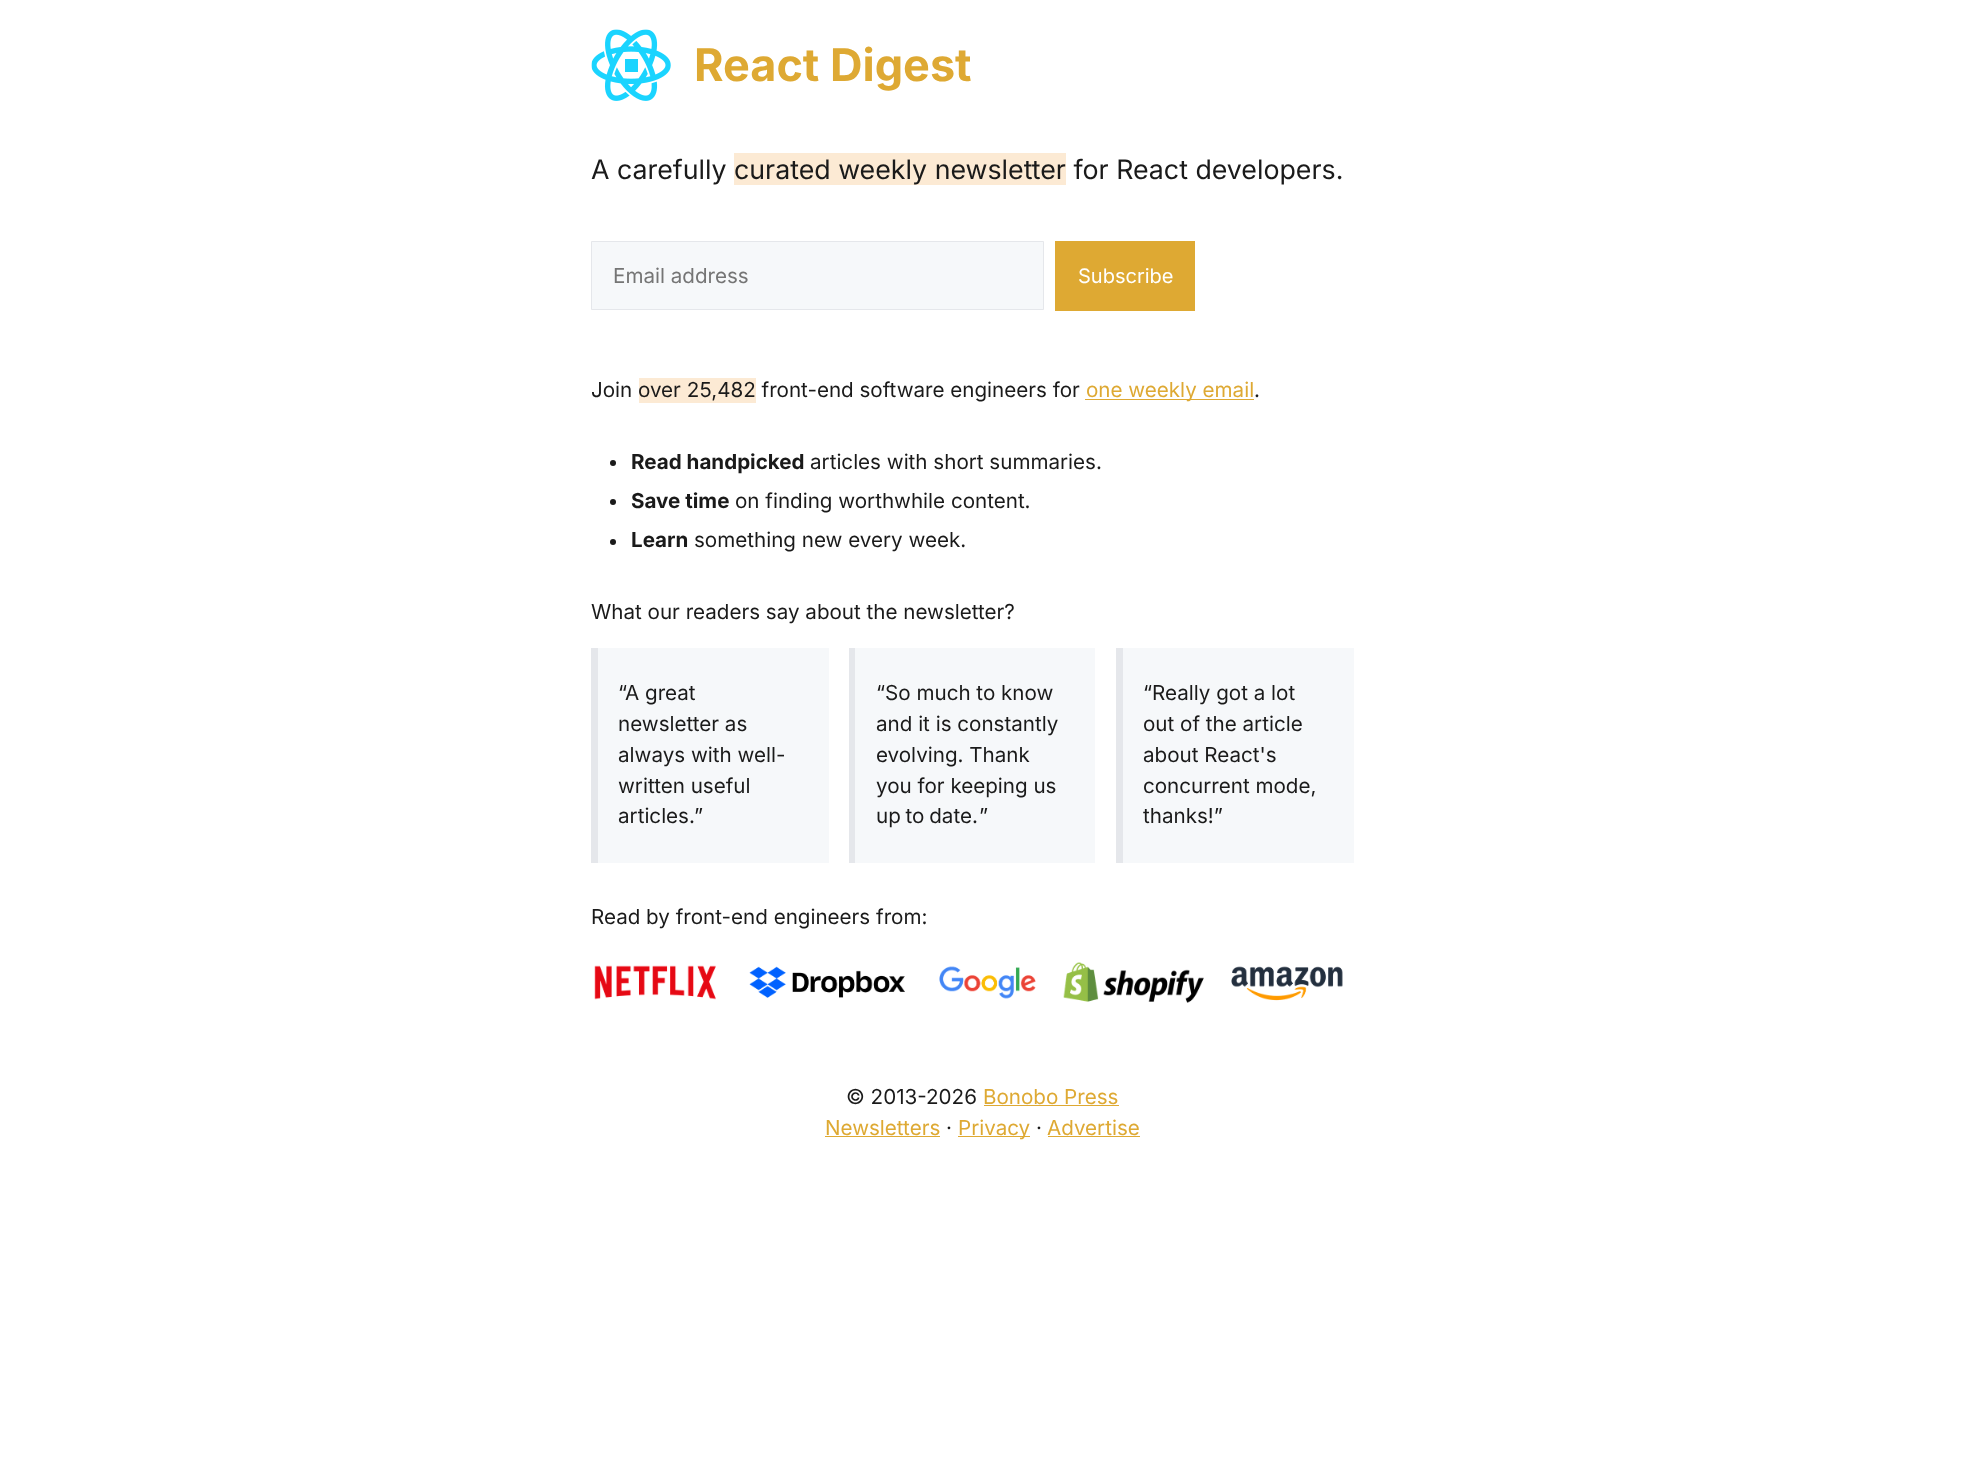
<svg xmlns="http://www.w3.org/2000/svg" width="1965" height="1483">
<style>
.a{font:bold 45px Inter;fill:#dea933}
.b{font:26.75px Inter;fill:#1a1a1a}
.c{font:20.6px Inter;fill:#757575}
.d{font:20px Inter;fill:#fff}
.e{font:20.6px Inter;fill:#1a1a1a}
.f{font:20.6px Inter;fill:#dea933}
.g{font:bold 20.6px Inter;fill:#1a1a1a}
</style>
<rect width="100%" height="100%" fill="#fff"/>
<image href="1.png" x="591" y="29" width="80" height="72"/>
<path fill="#fcead4" d="M734 153h332v32H734z"/>
<path fill="#f6f8fa" stroke="#e5e7eb" d="M591.5 241.5h452v68H591.5z"/>
<path fill="#dea933" d="M1055 241h140v70H1055z"/>
<path fill="#fcead4" d="M639 378h117v25H639z"/>
<path fill="#dea933" d="M1085 399h169v1H1085z"/>
<circle fill="#1a1a1a" cx="613" cy="463" r="3"/>
<circle fill="#1a1a1a" cx="613" cy="502" r="3"/>
<circle fill="#1a1a1a" cx="613" cy="542" r="3"/>
<path fill="#f6f8fa" d="M598 648h231v215H598z"/>
<path fill="#e5e7eb" d="M591 648h7v215H591z"/>
<path fill="#f6f8fa" d="M855 648h240v215H855z"/>
<path fill="#e5e7eb" d="M849 648h6v215H849z"/>
<path fill="#f6f8fa" d="M1123 648h231v215H1123z"/>
<path fill="#e5e7eb" d="M1116 648h7v215H1116z"/>
<image href="2.png" x="594" y="965" width="122" height="35"/>
<image href="3.png" x="749" y="966" width="156" height="32"/>
<image href="4.png" x="939" y="966" width="97" height="33"/>
<image href="5.png" x="1063" y="962" width="141" height="41"/>
<image href="6.png" x="1231" y="966" width="112" height="35"/>
<path fill="#dea933" d="M984 1105h135v1H984z"/>
<path fill="#dea933" d="M825 1136h115v1H825z"/>
<path fill="#dea933" d="M958 1136h72v1H958z"/>
<path fill="#dea933" d="M1048 1136h92v1H1048z"/>
<text class="a" x="694" y="81">React Digest</text>
<text class="b" x="591" y="179">A carefully</text>
<text class="b" x="734" y="179">curated weekly newsletter for React developers.</text>
<text class="c" x="613" y="283">Email address</text>
<text class="d" x="1078" y="283">Subscribe</text>
<text class="e" x="591" y="397">Join</text>
<text class="e" x="638" y="397">over 25,482 front-end software engineers for</text>
<text class="f" x="1086" y="397">one weekly email</text>
<text class="e" x="1254" y="397">.</text>
<text class="g" x="631" y="469">Read handpicked</text>
<text class="e" x="810" y="469">articles with short summaries.</text>
<text class="g" x="631" y="508">Save time</text>
<text class="e" x="735" y="508">on finding worthwhile content.</text>
<text class="g" x="631" y="547">Learn</text>
<text class="e" x="694" y="547">something new every week.</text>
<text class="e" x="591" y="619">What our readers say about the newsletter?</text>
<text class="e" x="618" y="700">“</text>
<text class="e" x="625" y="700">A great</text>
<text class="e" x="618" y="731">newsletter as</text>
<text class="e" x="618" y="762">always with well-</text>
<text class="e" x="618" y="793">written useful</text>
<text class="e" x="618" y="823">articles.</text>
<text class="e" x="694" y="823">”</text>
<text class="e" x="876" y="700">“So much to know</text>
<text class="e" x="876" y="731">and it is constantly</text>
<text class="e" x="876" y="762">evolving. Thank</text>
<text class="e" x="876" y="793">you for keeping us</text>
<text class="e" x="876" y="823" word-spacing="-1">up to date.</text>
<text class="e" x="979" y="823">”</text>
<text class="e" x="1143" y="700">“Really got a lot</text>
<text class="e" x="1143" y="731">out of the article</text>
<text class="e" x="1143" y="762">about React's</text>
<text class="e" x="1143" y="793">concurrent mode,</text>
<text class="e" x="1143" y="823">thanks!”</text>
<text class="e" x="591" y="924">Read by front-end engineers from:</text>
<text class="e" x="846" y="1104">© 2013-2026</text>
<text class="f" x="983" y="1104">Bonobo Press</text>
<text class="f" x="825" y="1135">Newsletters</text>
<text class="e" x="946" y="1135">·</text>
<text class="f" x="958" y="1135">Privacy</text>
<text class="e" x="1036" y="1135">·</text>
<text class="f" x="1047" y="1135">Advertise</text>
</svg>
